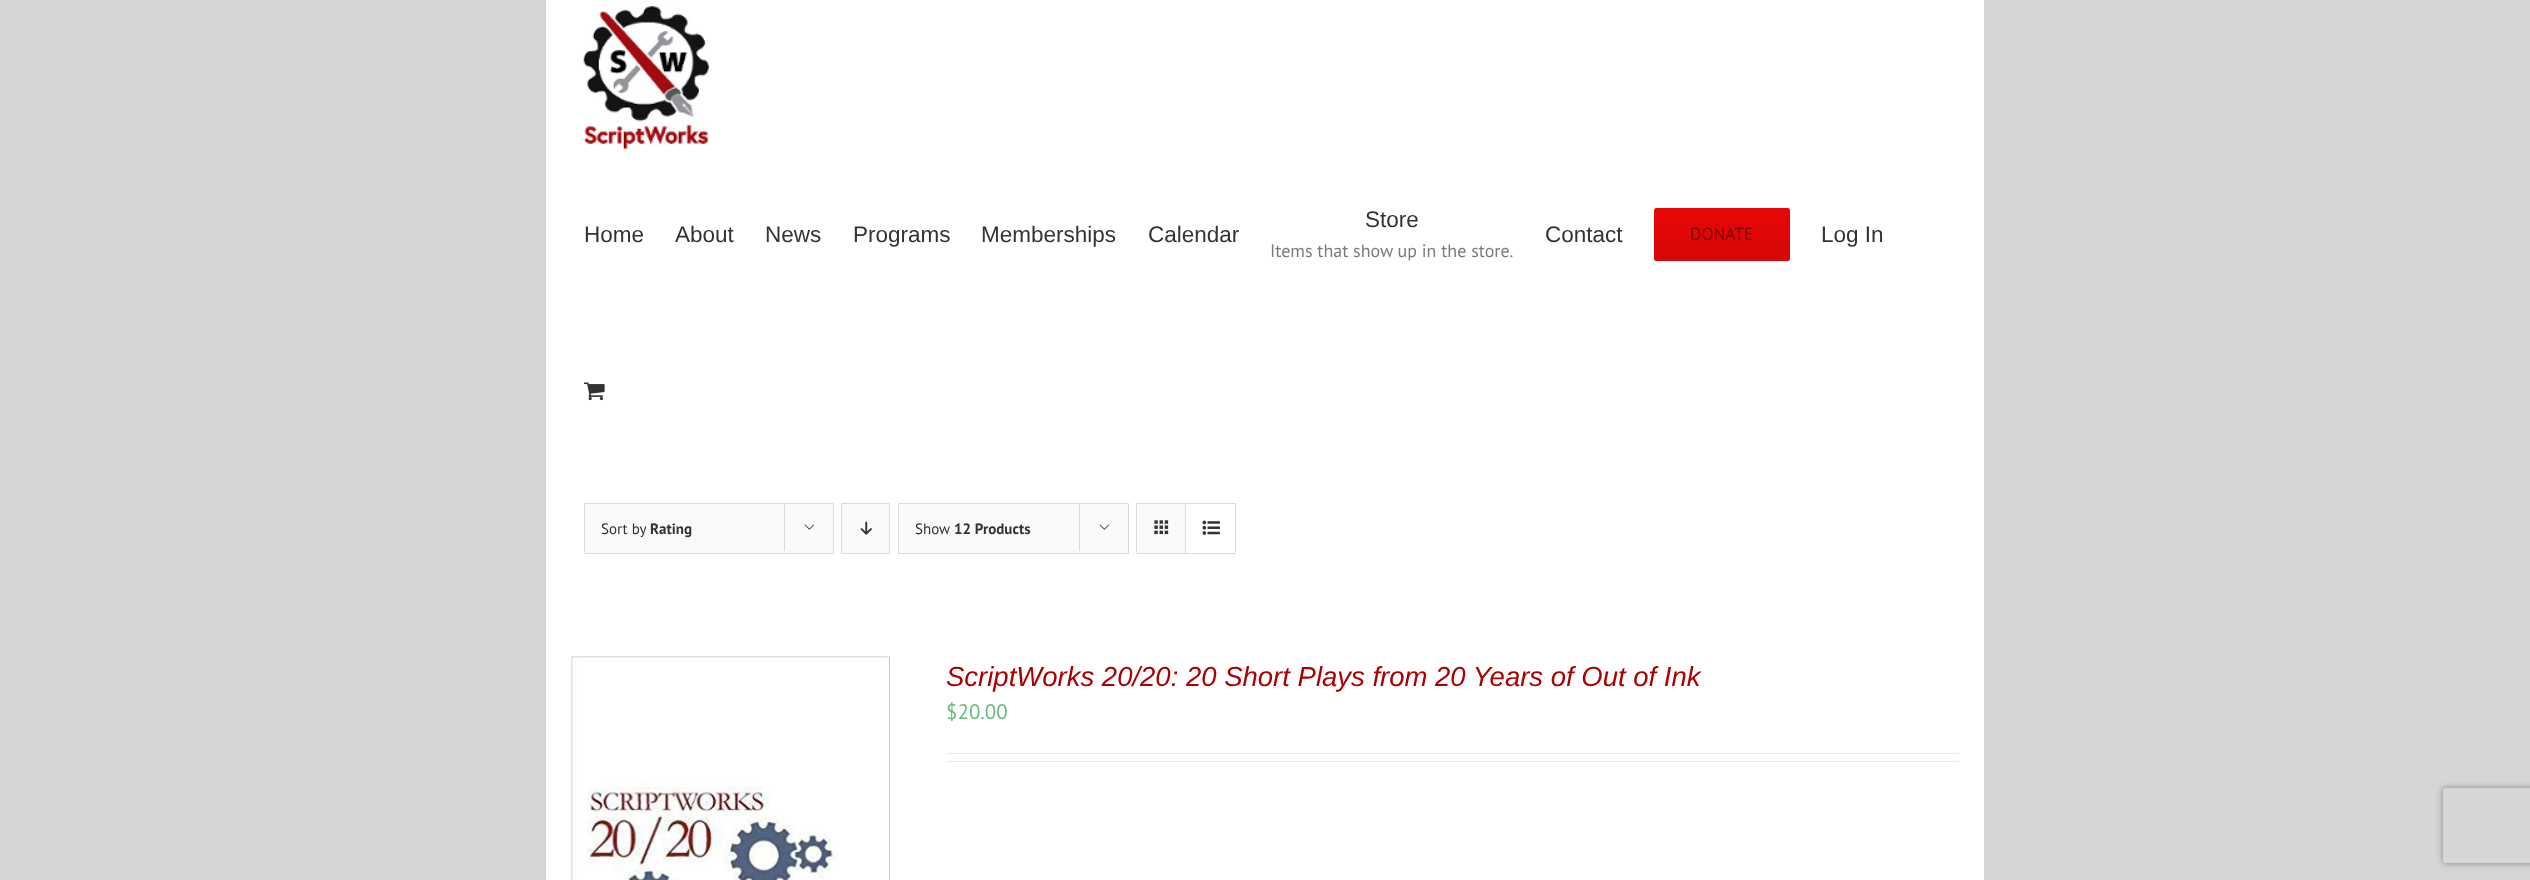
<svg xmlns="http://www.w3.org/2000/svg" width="2530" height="880">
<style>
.a{font:22.5px Liberation Sans;fill:#333}
.b{font:18px PT Sans;fill:#7a7a7a}
.c{font:17.5px PT Sans;fill:#780404}
.d{font:15px PT Sans;fill:#333}
.e{font:bold 15px PT Sans;fill:#333}
.f{font:italic 27.5px Liberation Sans;fill:#ac0000}
.g{font:21px PT Sans;fill:#65bc7b}
</style>
<defs>
<linearGradient id="g1" gradientUnits="userSpaceOnUse" x1="1722" y1="208" x2="1722" y2="261"><stop offset="0" stop-color="#e80707"/><stop offset="1" stop-color="#d60707"/></linearGradient>
<clipPath id="clip1"><path d="M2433 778h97v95h-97zm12.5 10h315c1.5 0 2.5 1 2.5 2.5v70c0 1.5-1 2.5-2.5 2.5h-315c-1.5 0-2.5-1-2.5-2.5v-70c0-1.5 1-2.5 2.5-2.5z" clip-rule="evenodd"/></clipPath>
</defs>
<rect width="100%" height="100%" fill="#d7d6d6"/>
<path fill="#fff" d="M546 0h1438v880H546z"/>
<image href="1.png" x="583" y="6" width="126" height="143"/>
<rect fill="url(#g1)" x="1654" y="208" width="136" height="53" rx="2.5"/>
<image href="2.png" x="584" y="382" width="21" height="19"/>
<path fill="#fbfaf9" stroke="#dbdbdb" d="M584.5 503.5h249v50H584.5z"/>
<path fill="#dbdbdb" d="M784 503h1v48H784z"/>
<image href="3.png" x="804" y="524" width="11" height="6"/>
<path fill="#fbfaf9" stroke="#dbdbdb" d="M841.5 503.5h48v50H841.5z"/>
<image href="4.png" x="860" y="521" width="12" height="14"/>
<path fill="#fbfaf9" stroke="#dbdbdb" d="M898.5 503.5h230v50H898.5z"/>
<path fill="#dbdbdb" d="M1079 503h1v48H1079z"/>
<image href="3.png" x="1099" y="524" width="11" height="6"/>
<path fill="none" stroke="#dbdbdb" d="M1136.5 503.5h99v50H1136.5z"/>
<path fill="#fbfaf9" d="M1138 504h47v49H1138z"/>
<path fill="#dbdbdb" d="M1185 504h1v49H1185z"/>
<image href="5.png" x="1154" y="520" width="15" height="15"/>
<image href="6.png" x="1202" y="520" width="18" height="15"/>
<image href="7.png" x="571" y="656" width="319" height="224"/>
<path fill="#ebeaea" d="M946 753h1013v1H946z"/>
<path fill="#ebeaea" d="M946 761h1013v1H946z"/>
<g clip-path="url(#clip1)">
<rect fill="#808080" filter="blur(3px)" x="2443" y="788" width="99" height="75" rx="2.5"/>
</g>
<text class="a" x="584" y="242">Home</text>
<text class="a" x="675" y="242">About</text>
<text class="a" x="765" y="242">News</text>
<text class="a" x="853" y="242">Programs</text>
<text class="a" x="981" y="242">Memberships</text>
<text class="a" x="1148" y="242">Calendar</text>
<text class="a" x="1365" y="227">Store</text>
<text class="b" x="1270" y="257">Items that show up in the store.</text>
<text class="a" x="1545" y="242">Contact</text>
<text class="c" x="1690" y="240">DONATE</text>
<text class="a" x="1821" y="242">Log In</text>
<text class="d" x="601" y="534">Sort by</text>
<text class="e" x="650" y="534">Rating</text>
<text class="d" x="915" y="534">Show</text>
<text class="e" x="954" y="534">12 Products</text>
<text class="f" x="946" y="686">ScriptWorks 20/20: 20 Short Plays from 20 Years of Out of Ink</text>
<text class="g" x="946" y="719">$20.00</text>
</svg>
